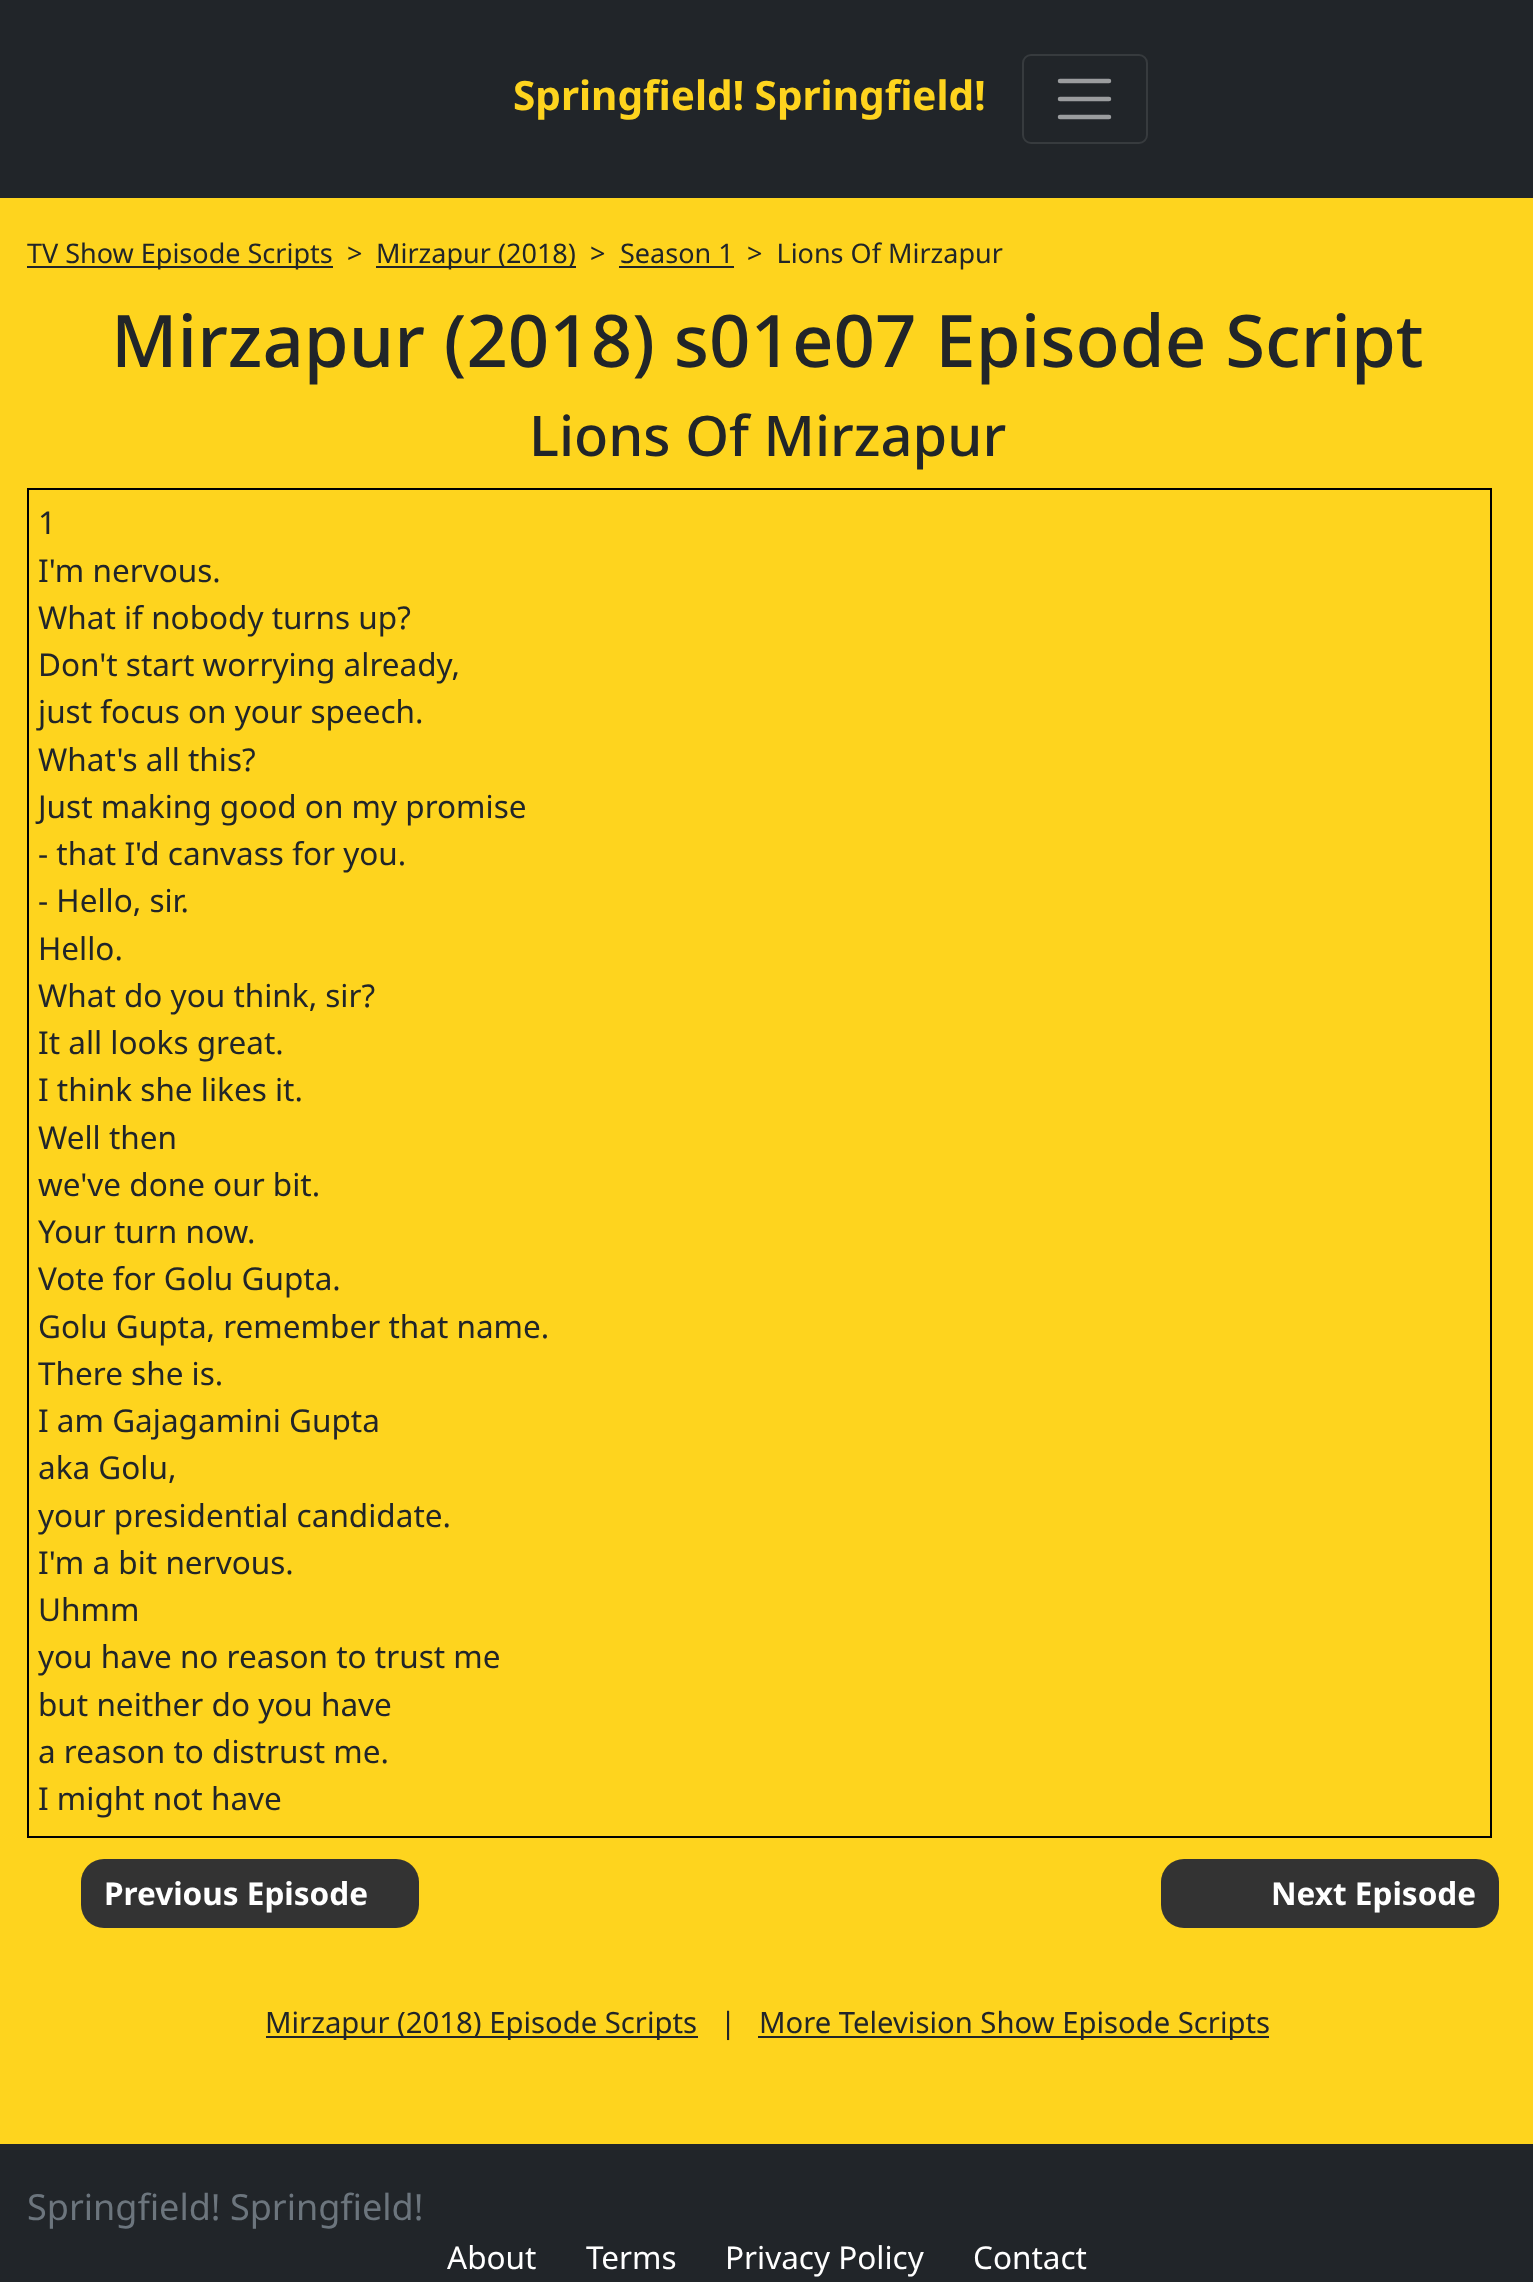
<svg xmlns="http://www.w3.org/2000/svg" width="1533" height="2282">
<style>
.a{font:bold 40.5px Noto Sans;fill:#fed41e}
.b{font:27px Noto Sans;fill:#212529}
.c{font:500 72.5px Noto Sans;fill:#212529}
.d{font:500 56px Noto Sans;fill:#212529}
.e{font:31.5px Noto Sans;fill:#212529}
.f{font:bold 31.5px Noto Sans;fill:#fff}
.g{font:29.25px Noto Sans;fill:#212529}
.h{font:36px Noto Sans;fill:#6c757d}
.i{font:31.5px Noto Sans;fill:#fff}
</style>
<rect width="100%" height="100%" fill="#fed41e"/>
<path fill="#212529" d="M0 0h1533v198H0z"/>
<rect fill="none" stroke="#373b3e" stroke-width="2" x="1023" y="55" width="124" height="88" rx="8"/>
<path fill="none" stroke="#9b9d9f" stroke-width="4.5" stroke-linecap="round" d="M1060 81h49m-49 18h49m-49 18h49"/>
<path fill="#212529" d="M27 266h306v2H27z"/>
<path fill="#212529" d="M376 266h200v2H376z"/>
<path fill="#212529" d="M619 266h115v2H619z"/>
<path fill="none" stroke="#000" stroke-width="2" d="M28 489h1463v1348H28z"/>
<rect fill="#333" x="81" y="1859" width="338" height="69" rx="23"/>
<rect fill="#333" x="1161" y="1859" width="338" height="69" rx="23"/>
<path fill="#212529" d="M266 2036h432v2H266z"/>
<path fill="#212529" d="M758 2036h511v2H758z"/>
<path fill="#212529" d="M0 2144h1533v138H0z"/>
<text class="a" x="513" y="110">Springfield! Springfield!</text>
<text class="b" x="27" y="263">TV Show Episode Scripts</text>
<text class="b" x="347" y="263">&gt;</text>
<text class="b" x="376" y="263">Mirzapur (2018)</text>
<text class="b" x="590" y="263">&gt;</text>
<text class="b" x="620" y="263">Season 1</text>
<text class="b" xml:space="preserve" x="747" y="263">&gt;  Lions Of Mirzapur</text>
<text class="c" x="111" y="367">Mirzapur (2018) s01e07 Episode Script</text>
<text class="d" x="529" y="456">Lions Of Mirzapur</text>
<text class="e" x="38" y="534">1</text>
<text class="e" x="38" y="582">I'm nervous.</text>
<text class="e" x="38" y="629">What if nobody turns up?</text>
<text class="e" x="38" y="676">Don't start worrying already,</text>
<text class="e" x="38" y="723">just focus on your speech.</text>
<text class="e" x="38" y="771">What's all this?</text>
<text class="e" x="38" y="818">Just making good on my promise</text>
<text class="e" x="38" y="865">- that I'd canvass for you.</text>
<text class="e" x="38" y="912">- Hello, sir.</text>
<text class="e" x="38" y="960">Hello.</text>
<text class="e" x="38" y="1007">What do you think, sir?</text>
<text class="e" x="38" y="1054">It all looks great.</text>
<text class="e" x="38" y="1101">I think she likes it.</text>
<text class="e" x="38" y="1149">Well then</text>
<text class="e" x="38" y="1196">we've done our bit.</text>
<text class="e" x="38" y="1243">Your turn now.</text>
<text class="e" x="38" y="1290">Vote for Golu Gupta.</text>
<text class="e" x="38" y="1338">Golu Gupta, remember that name.</text>
<text class="e" x="38" y="1385">There she is.</text>
<text class="e" x="38" y="1432">I am Gajagamini Gupta</text>
<text class="e" x="38" y="1479">aka Golu,</text>
<text class="e" x="38" y="1527">your presidential candidate.</text>
<text class="e" x="38" y="1574">I'm a bit nervous.</text>
<text class="e" x="38" y="1621">Uhmm</text>
<text class="e" x="38" y="1668">you have no reason to trust me</text>
<text class="e" x="38" y="1716">but neither do you have</text>
<text class="e" x="38" y="1763">a reason to distrust me.</text>
<text class="e" x="38" y="1810">I might not have</text>
<text class="f" x="104" y="1905">Previous Episode</text>
<text class="f" x="1271" y="1905">Next Episode</text>
<text class="g" x="265" y="2033">Mirzapur (2018) Episode Scripts</text>
<text class="g" x="720" y="2033">|</text>
<text class="g" x="759" y="2033">More Television Show Episode Scripts</text>
<text class="h" x="27" y="2220">Springfield! Springfield!</text>
<text class="i" x="447" y="2269">About</text>
<text class="i" x="586" y="2269">Terms</text>
<text class="i" x="725" y="2269">Privacy Policy</text>
<text class="i" x="973" y="2269">Contact</text>
</svg>
